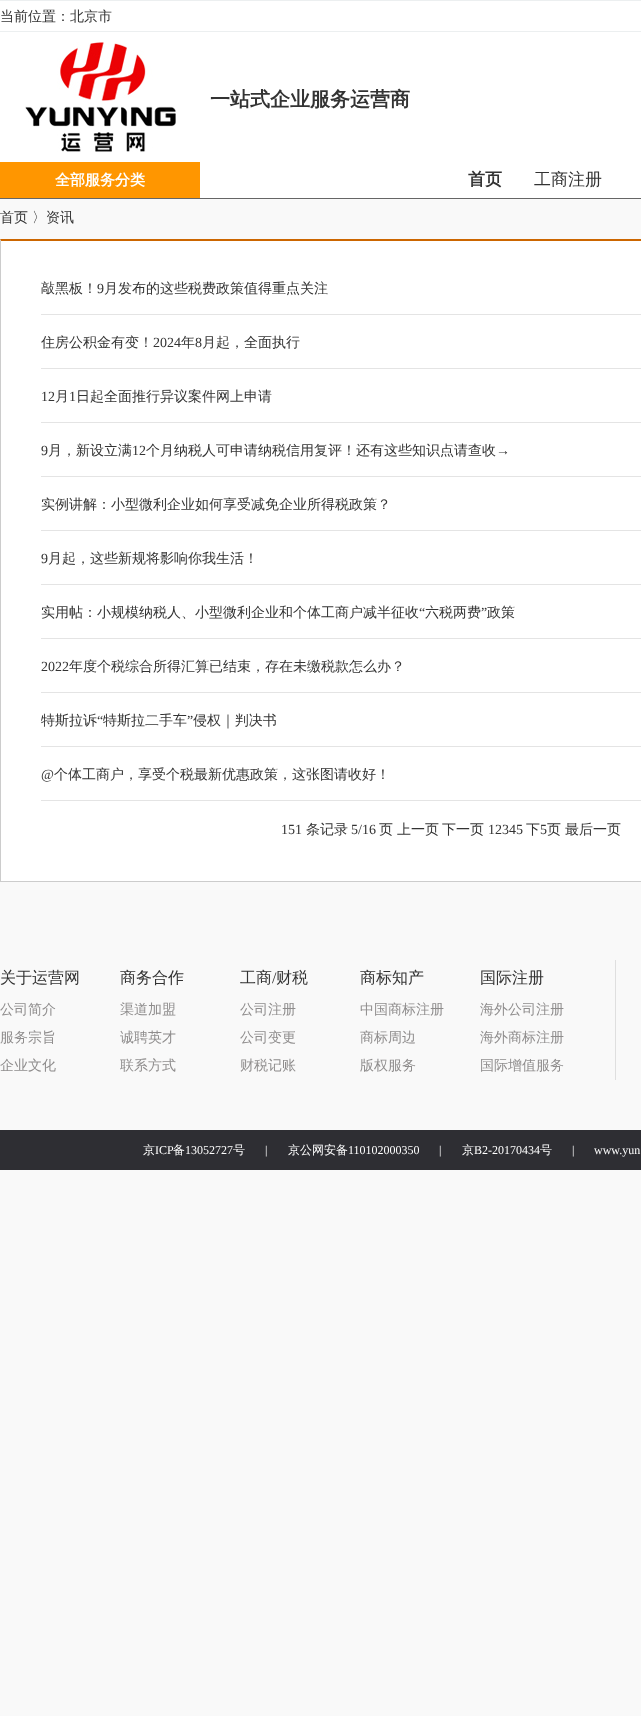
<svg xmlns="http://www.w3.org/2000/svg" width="641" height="1716">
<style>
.a{font:500 14px WenQuanYi Zen Hei;fill:#333}
.b{font:bold 20px WenQuanYi Zen Hei;fill:#333}
.c{font:bold 15px WenQuanYi Zen Hei;fill:#fff}
.d{font:bold 17px WenQuanYi Zen Hei;fill:#333}
.e{font:500 17px WenQuanYi Zen Hei;fill:#333}
.f{font:14px Liberation Serif;fill:#333}
.g{font:500 16px WenQuanYi Zen Hei;fill:#333}
.h{font:500 14px WenQuanYi Zen Hei;fill:#8f8d8d}
.i{font:16px Liberation Serif;fill:#333}
.j{font:500 12px WenQuanYi Zen Hei;fill:#fff}
.k{font:12px Liberation Serif;fill:#fff}
</style>
<rect width="100%" height="100%" fill="#f9f9f9"/>
<path fill="#fff" d="M0 1h641v30H0z"/>
<path fill="#eceff0" d="M0 0h641v1H0z"/>
<path fill="#eceff0" d="M0 31h641v1H0z"/>
<path fill="#fff" d="M0 32h641v130H0z"/>
<image href="1.png" x="25" y="42" width="151" height="110"/>
<path fill="#fff" d="M200 162h441v36H200z"/>
<path fill="#ff9600" d="M0 162h200v36H0z"/>
<path fill="#666" d="M0 198h641v1H0z"/>
<path fill="#fff" d="M1 241h640v640H1z"/>
<path fill="#c60" d="M0 239h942l-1 2h-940z"/>
<path fill="#ccc" d="M0 881h641v1H0z"/>
<path fill="#ccc" d="M0 882v-643l1 2v640z"/>
<path fill="#e4e4e4" d="M41 314h600v1H41z"/>
<path fill="#e4e4e4" d="M41 368h600v1H41z"/>
<path fill="#e4e4e4" d="M41 422h600v1H41z"/>
<path fill="#e4e4e4" d="M41 476h600v1H41z"/>
<path fill="#e4e4e4" d="M41 530h600v1H41z"/>
<path fill="#e4e4e4" d="M41 584h600v1H41z"/>
<path fill="#e4e4e4" d="M41 638h600v1H41z"/>
<path fill="#e4e4e4" d="M41 692h600v1H41z"/>
<path fill="#e4e4e4" d="M41 746h600v1H41z"/>
<path fill="#e4e4e4" d="M41 800h600v1H41z"/>
<path fill="#dfdfdf" d="M615 960h1v120H615z"/>
<path fill="#2e2e33" d="M0 1130h641v40H0z"/>
<text class="a" x="0" y="21">当前位置：北京市</text>
<text class="b" x="210" y="106">一站式企业服务运营商</text>
<text class="c" x="55" y="185">全部服务分类</text>
<text class="d" x="468" y="185">首页</text>
<text class="e" x="534" y="185">工商注册</text>
<text class="a" x="0" y="222">首页</text>
<text class="a" x="32" y="222">〉资讯</text>
<text class="a" x="41" y="293">敲黑板！</text>
<text class="f" x="97" y="293">9</text>
<text class="a" x="104" y="293">月发布的这些税费政策值得重点关注</text>
<text class="a" x="41" y="347">住房公积金有变！</text>
<text class="f" x="153" y="347">2024</text>
<text class="a" x="181" y="347">年</text>
<text class="f" x="195" y="347">8</text>
<text class="a" x="202" y="347">月起，全面执行</text>
<text class="f" x="41" y="401">12</text>
<text class="a" x="55" y="401">月</text>
<text class="f" x="69" y="401">1</text>
<text class="a" x="76" y="401">日起全面推行异议案件网上申请</text>
<text class="f" x="41" y="455">9</text>
<text class="a" x="48" y="455">月，新设立满</text>
<text class="f" x="132" y="455">12</text>
<text class="a" x="146" y="455">个月纳税人可申请纳税信用复评！还有这些知识点请查收</text>
<text class="f" x="496" y="455">→</text>
<text class="a" x="41" y="509">实例讲解：小型微利企业如何享受减免企业所得税政策？</text>
<text class="f" x="41" y="563">9</text>
<text class="a" x="48" y="563">月起，这些新规将影响你我生活！</text>
<text class="a" x="41" y="617">实用帖：小规模纳税人、小型微利企业和个体工商户减半征收</text>
<text class="f" x="419" y="617">“</text>
<text class="a" x="425" y="617">六税两费</text>
<text class="f" x="481" y="617">”</text>
<text class="a" x="487" y="617">政策</text>
<text class="f" x="41" y="671">2022</text>
<text class="a" x="69" y="671">年度个税综合所得汇算已结束，存在未缴税款怎么办？</text>
<text class="a" x="41" y="725">特斯拉诉</text>
<text class="f" x="97" y="725">“</text>
<text class="a" x="103" y="725">特斯拉二手车</text>
<text class="f" x="187" y="725">”</text>
<text class="a" x="193" y="725">侵权｜判决书</text>
<text class="f" x="41" y="779">@</text>
<text class="a" x="54" y="779">个体工商户，享受个税最新优惠政策，这张图请收好！</text>
<text class="f" x="281" y="834">151</text>
<text class="a" x="306" y="834">条记录</text>
<text class="f" x="351" y="834">5/16</text>
<text class="a" x="379" y="834">页</text>
<text class="a" x="397" y="834">上一页</text>
<text class="a" x="442" y="834">下一页</text>
<text class="f" x="488" y="834">12345</text>
<text class="a" x="526" y="834">下</text>
<text class="f" x="540" y="834">5</text>
<text class="a" x="547" y="834">页</text>
<text class="a" x="565" y="834">最后一页</text>
<text class="g" x="0" y="983">关于运营网</text>
<text class="h" x="0" y="1014">公司简介</text>
<text class="h" x="0" y="1042">服务宗旨</text>
<text class="h" x="0" y="1070">企业文化</text>
<text class="g" x="120" y="983">商务合作</text>
<text class="h" x="120" y="1014">渠道加盟</text>
<text class="h" x="120" y="1042">诚聘英才</text>
<text class="h" x="120" y="1070">联系方式</text>
<text class="g" x="240" y="983">工商</text>
<text class="i" x="272" y="983">/</text>
<text class="g" x="276" y="983">财税</text>
<text class="h" x="240" y="1014">公司注册</text>
<text class="h" x="240" y="1042">公司变更</text>
<text class="h" x="240" y="1070">财税记账</text>
<text class="g" x="360" y="983">商标知产</text>
<text class="h" x="360" y="1014">中国商标注册</text>
<text class="h" x="360" y="1042">商标周边</text>
<text class="h" x="360" y="1070">版权服务</text>
<text class="g" x="480" y="983">国际注册</text>
<text class="h" x="480" y="1014">海外公司注册</text>
<text class="h" x="480" y="1042">海外商标注册</text>
<text class="h" x="480" y="1070">国际增值服务</text>
<text class="j" x="143" y="1154">京</text>
<text class="k" x="155" y="1154">ICP</text>
<text class="j" x="173" y="1154">备</text>
<text class="k" x="185" y="1154">13052727</text>
<text class="j" x="233" y="1154">号</text>
<text class="k" x="265" y="1154">|</text>
<text class="j" x="288" y="1154">京公网安备</text>
<text class="k" x="348" y="1154">110102000350</text>
<text class="k" x="439" y="1154">|</text>
<text class="j" x="462" y="1154">京</text>
<text class="k" x="474" y="1154">B2-20170434</text>
<text class="j" x="540" y="1154">号</text>
<text class="k" x="572" y="1154">|</text>
<text class="k" x="594" y="1154">www.yun</text>
</svg>
